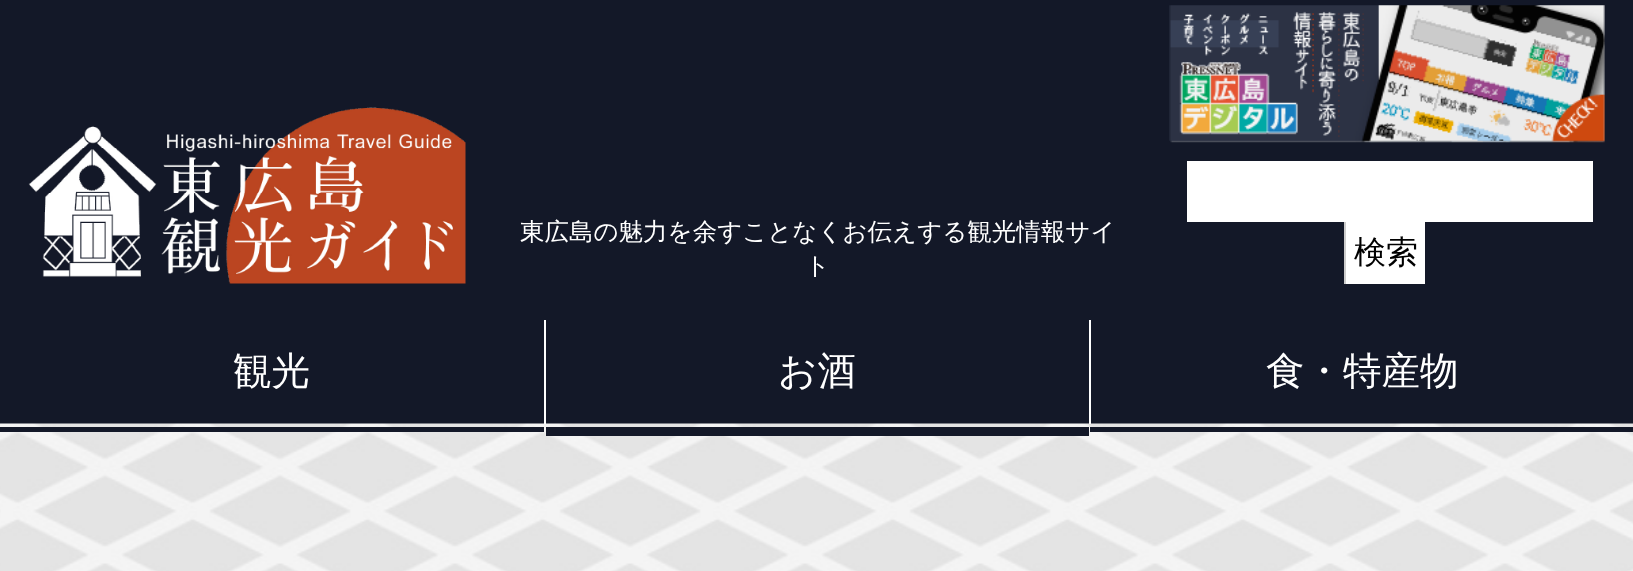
<svg xmlns="http://www.w3.org/2000/svg" width="1633" height="571">
<style>
.a{font:500 24.5px WenQuanYi Zen Hei;fill:#fff}
.b{font:500 32px WenQuanYi Zen Hei;fill:#000}
.c{font:500 38.5px WenQuanYi Zen Hei;fill:#fff}
</style>
<rect width="100%" height="100%" fill="#131828"/>
<image href="1.png" x="28" y="107" width="438" height="177"/>
<image href="2.png" x="1169" y="5" width="436" height="138"/>
<path fill="#fff" d="M1187 161h406v61H1187z"/>
<path fill="#fff" d="M1346 222h79v62H1346z"/>
<path fill="#ccc" d="M1344 222h2v62H1344z"/>
<image href="3.png" x="0" y="423" width="1633" height="148"/>
<path fill="#fff" d="M544 320h2v104H544z"/>
<path fill="#131828" d="M0 427h544v5H0z"/>
<path fill="#fff" d="M1089 320h2v104H1089z"/>
<path fill="#131828" d="M546 427h543v9H546z"/>
<path fill="#131828" d="M1090 427h543v5H1090z"/>
<text class="a" x="520" y="240">東広島の魅力を余すことなくお伝えする観光情報サイ</text>
<text class="a" x="805" y="274">ト</text>
<text class="b" x="1354" y="263">検索</text>
<text class="c" x="233" y="384">観光</text>
<text class="c" x="778" y="384">お酒</text>
<text class="c" x="1266" y="384">食・特産物</text>
</svg>
